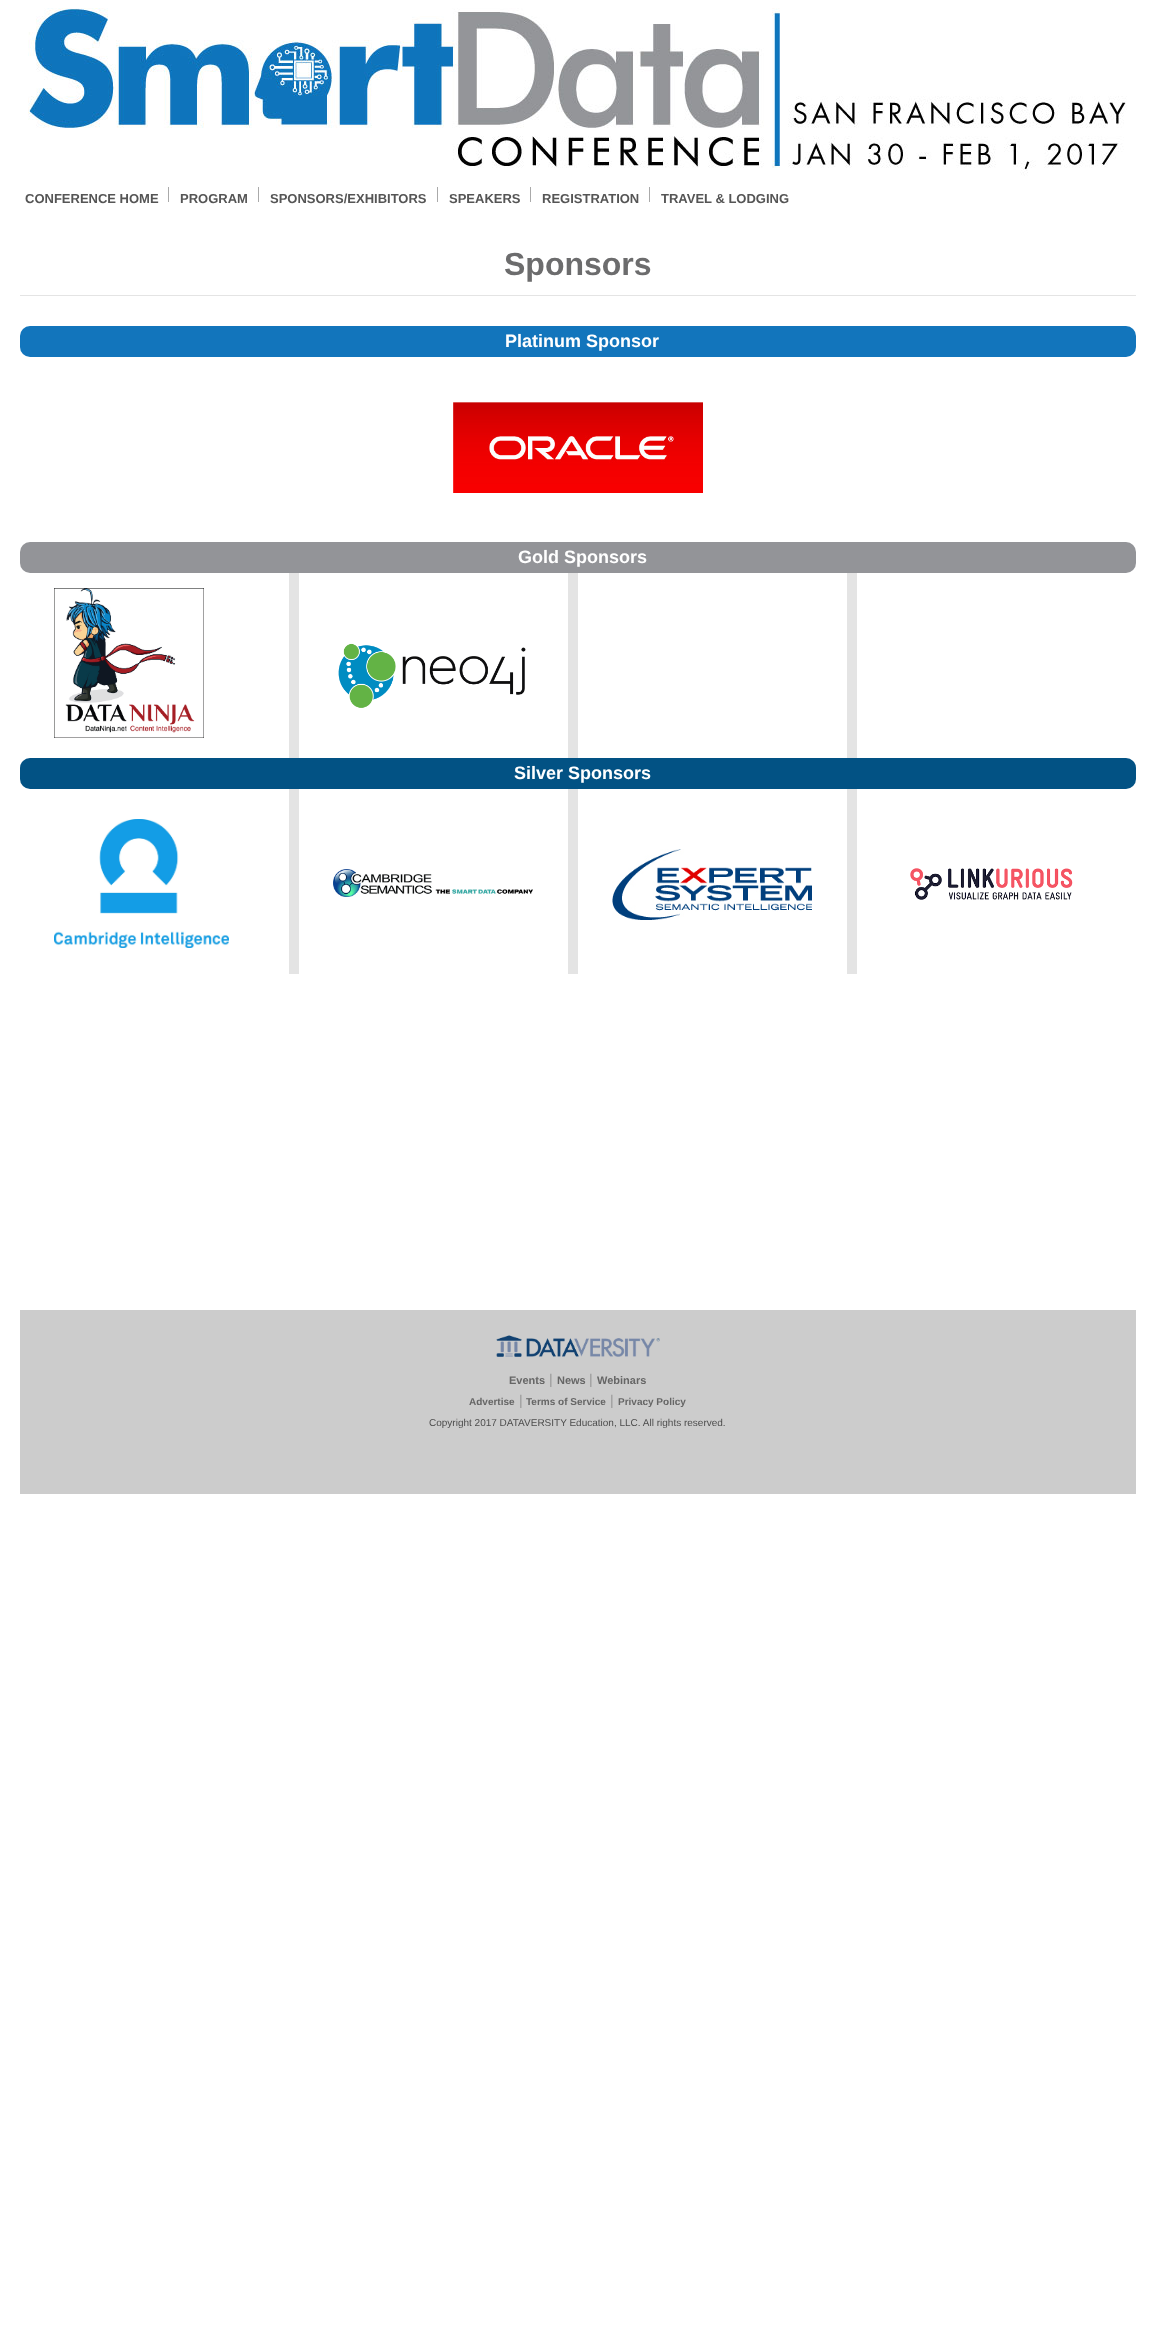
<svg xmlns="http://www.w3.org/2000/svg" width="1155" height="2344">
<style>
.a{font:bold 13px Liberation Sans;fill:#555}
.b{font:bold 32px Liberation Sans;fill:#6c6c6d}
.c{font:bold 18px Liberation Sans;fill:#fff}
.d{font:bold 11px Liberation Sans;fill:#666}
.e{font:14px Liberation Sans;fill:#999}
.f{font:bold 10px Liberation Sans;fill:#666}
.g{font:10px Liberation Sans;fill:#4d4d4d}
</style>
<rect width="100%" height="100%" fill="#fff"/>
<image href="1.png" x="28" y="8" width="1099" height="168"/>
<path fill="#aaa" d="M168 187h1v15H168z"/>
<path fill="#aaa" d="M258 187h1v15H258z"/>
<path fill="#aaa" d="M437 187h1v15H437z"/>
<path fill="#aaa" d="M530 187h1v15H530z"/>
<path fill="#aaa" d="M649 187h1v15H649z"/>
<path fill="#e4e4e4" d="M20 295h1116v1H20z"/>
<rect fill="#1275bc" x="20" y="326" width="1116" height="31" rx="10"/>
<image href="2.png" x="453" y="402" width="250" height="91"/>
<rect fill="#939498" x="20" y="542" width="1116" height="31" rx="10"/>
<path fill="#e4e4e4" d="M289 573h10v185H289z"/>
<image href="3.png" x="54" y="588" width="150" height="150"/>
<path fill="#e4e4e4" d="M568 573h10v185H568z"/>
<image href="4.png" x="338" y="643" width="188" height="65"/>
<path fill="#e4e4e4" d="M847 573h10v185H847z"/>
<rect fill="#025284" x="20" y="758" width="1116" height="31" rx="10"/>
<path fill="#e4e4e4" d="M289 789h10v185H289z"/>
<image href="5.png" x="54" y="819" width="175" height="129"/>
<path fill="#e4e4e4" d="M568 789h10v185H568z"/>
<image href="6.png" x="333" y="869" width="200" height="28"/>
<path fill="#e4e4e4" d="M847 789h10v185H847z"/>
<image href="7.png" x="612" y="849" width="200" height="71"/>
<image href="8.png" x="910" y="868" width="163" height="32"/>
<path fill="#ccc" d="M20 1310h1116v184H20z"/>
<image href="9.png" x="496" y="1335" width="164" height="22"/>
<text class="a" x="25" y="203">CONFERENCE HOME</text>
<text class="a" x="180" y="203">PROGRAM</text>
<text class="a" x="270" y="203">SPONSORS/EXHIBITORS</text>
<text class="a" x="449" y="203">SPEAKERS</text>
<text class="a" x="542" y="203">REGISTRATION</text>
<text class="a" x="661" y="203">TRAVEL &amp; LODGING</text>
<text class="b" x="504" y="275">Sponsors</text>
<text class="c" x="505" y="347">Platinum Sponsor</text>
<text class="c" x="518" y="563">Gold Sponsors</text>
<text class="c" x="514" y="779">Silver Sponsors</text>
<text class="d" x="509" y="1384">Events</text>
<text class="e" x="549" y="1384">|</text>
<text class="d" x="557" y="1384">News</text>
<text class="e" x="589" y="1384">|</text>
<text class="d" x="597" y="1384">Webinars</text>
<text class="f" x="469" y="1405">Advertise</text>
<text class="e" x="519" y="1405">|</text>
<text class="f" x="526" y="1405">Terms of Service</text>
<text class="e" x="610" y="1405">|</text>
<text class="f" x="618" y="1405">Privacy Policy</text>
<text class="g" x="429" y="1426">Copyright 2017 DATAVERSITY Education, LLC. All rights reserved.</text>
</svg>
